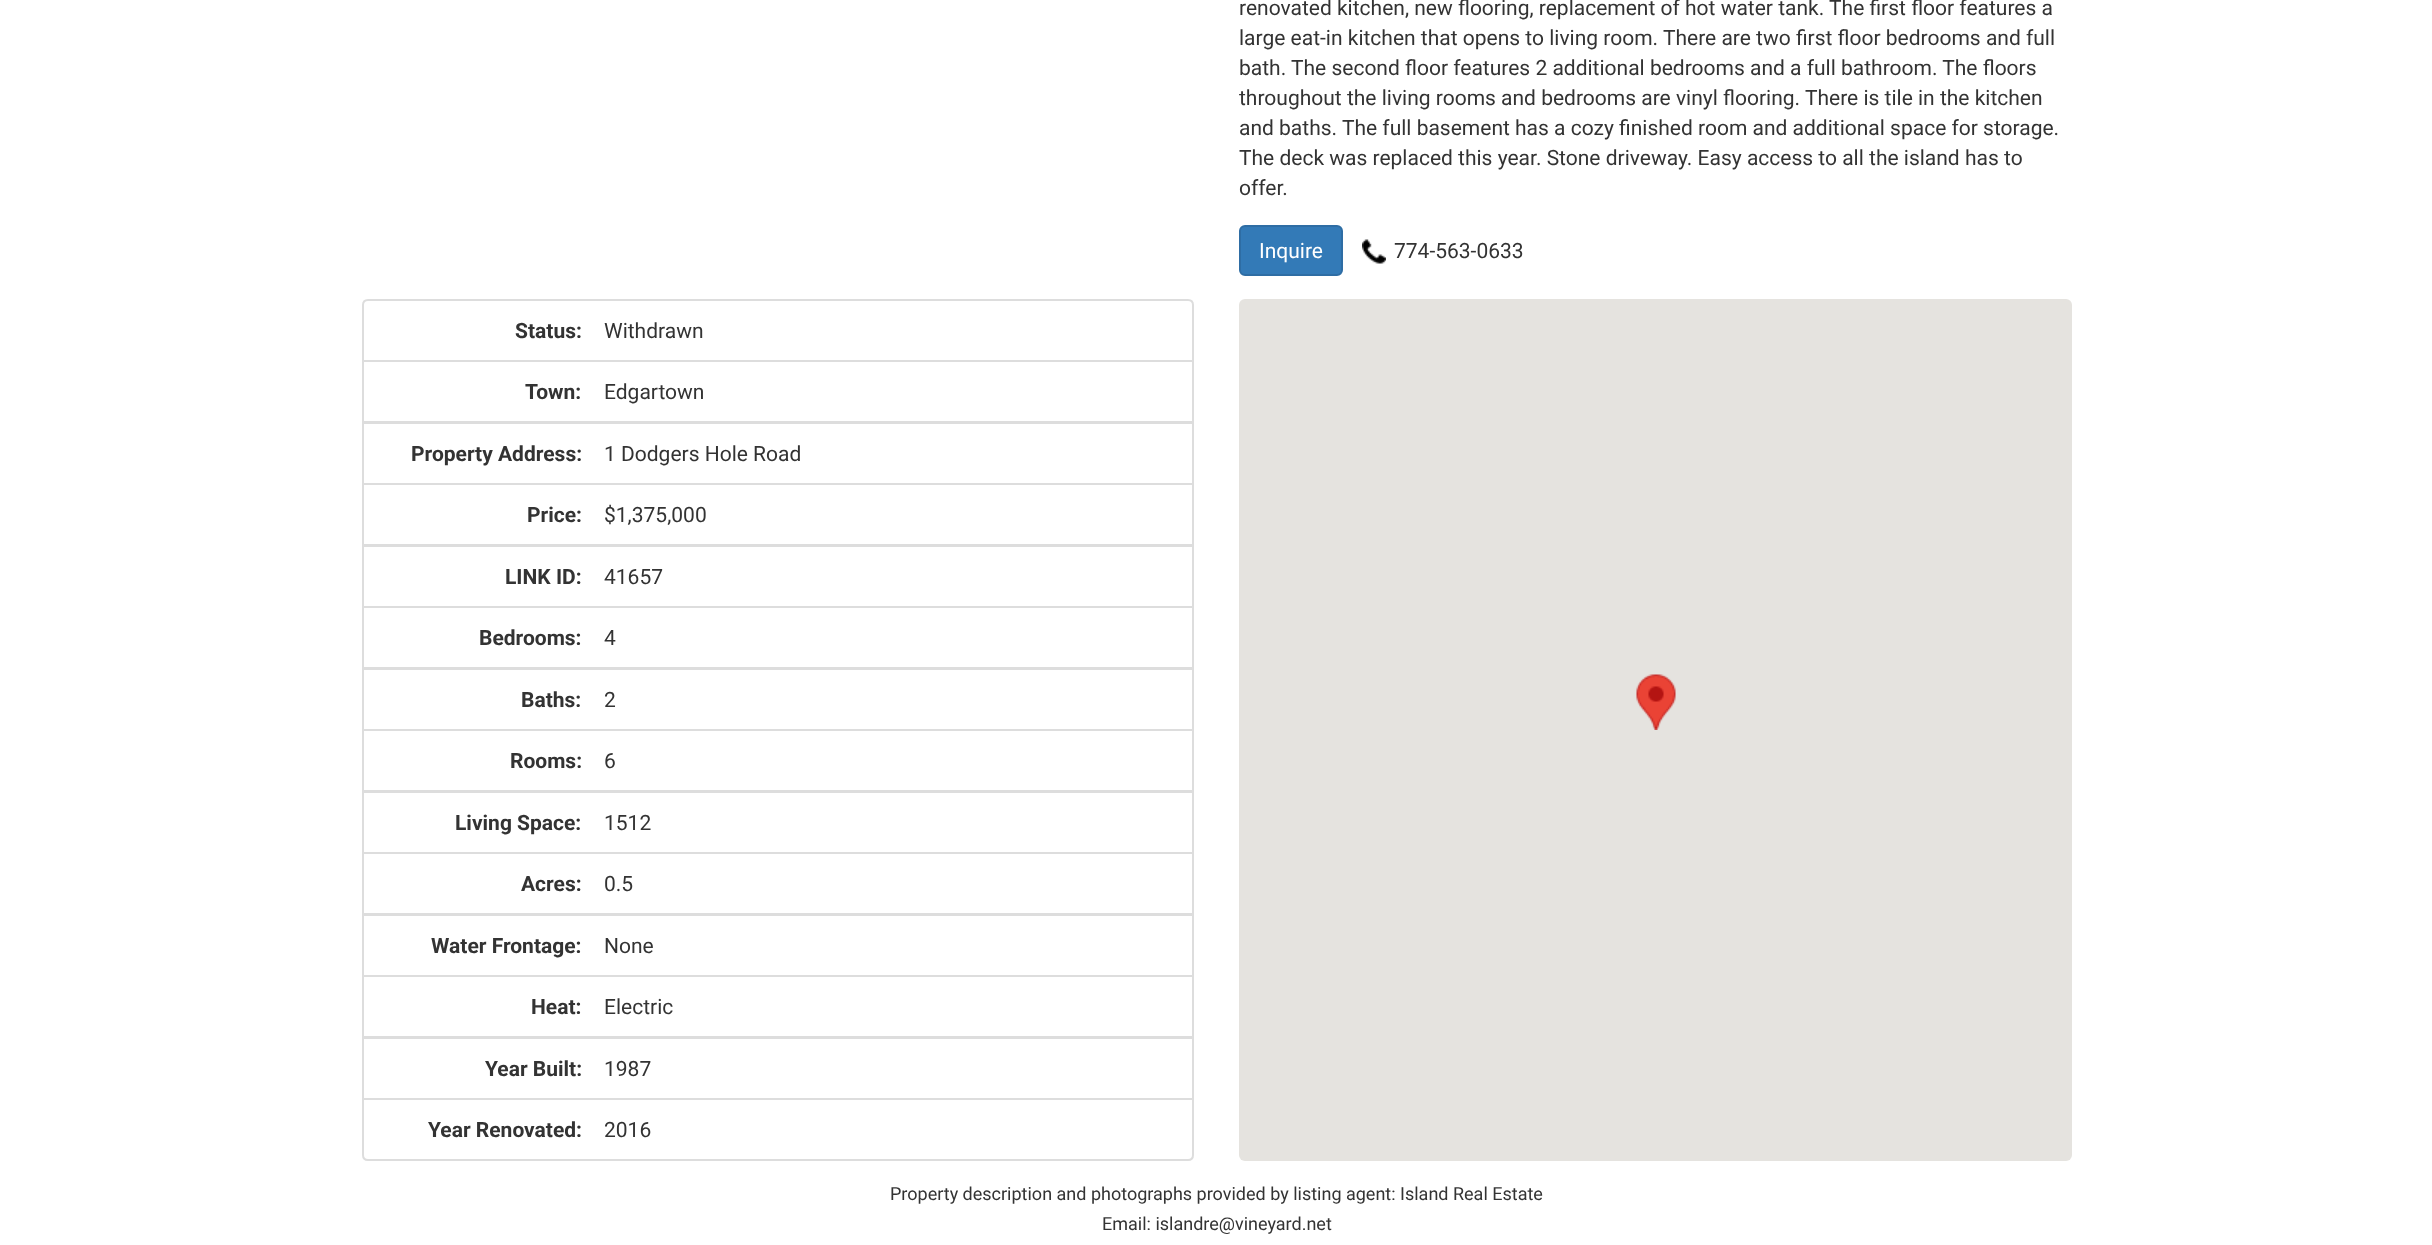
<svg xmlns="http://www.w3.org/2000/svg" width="2432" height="1245">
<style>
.a{font:21px Roboto;fill:#333}
.b{font:21px Roboto;fill:#fff}
.c{font:bold 21px Roboto;fill:#333}
.d{font:18px Roboto;fill:#333}
</style>
<rect width="100%" height="100%" fill="#fff"/>
<rect fill="#337ab7" stroke="#2e6da4" stroke-width="2" x="1240" y="226" width="102" height="49" rx="5"/>
<image href="1.png" x="1362" y="239" width="24" height="25"/>
<path fill="none" stroke="#ddd" stroke-width="2" d="M368 300h820c3 0 5 2 5 5v56h-830v-56c0-3 2-5 5-5z"/>
<path fill="none" stroke="#ddd" stroke-width="2" d="M363 361h830v61H363z"/>
<path fill="none" stroke="#ddd" stroke-width="2" d="M363 423h830v61H363z"/>
<path fill="none" stroke="#ddd" stroke-width="2" d="M363 484h830v61H363z"/>
<path fill="none" stroke="#ddd" stroke-width="2" d="M363 546h830v61H363z"/>
<path fill="none" stroke="#ddd" stroke-width="2" d="M363 607h830v61H363z"/>
<path fill="none" stroke="#ddd" stroke-width="2" d="M363 669h830v61H363z"/>
<path fill="none" stroke="#ddd" stroke-width="2" d="M363 730h830v61H363z"/>
<path fill="none" stroke="#ddd" stroke-width="2" d="M363 792h830v61H363z"/>
<path fill="none" stroke="#ddd" stroke-width="2" d="M363 853h830v61H363z"/>
<path fill="none" stroke="#ddd" stroke-width="2" d="M363 915h830v61H363z"/>
<path fill="none" stroke="#ddd" stroke-width="2" d="M363 976h830v61H363z"/>
<path fill="none" stroke="#ddd" stroke-width="2" d="M363 1038h830v61H363z"/>
<path fill="#fff" stroke="#ddd" stroke-width="2" d="M363 1099h830v56c0 3-2 5-5 5h-820c-3 0-5-2-5-5z"/>
<rect fill="#e5e3df" x="1239" y="299" width="833" height="862" rx="6"/>
<image href="2.png" x="1636" y="674" width="40" height="56"/>
<text class="a" x="1239" y="15">renovated kitchen, new flooring, replacement of hot water tank. The first floor features a</text>
<text class="a" x="1239" y="45">large eat-in kitchen that opens to living room. There are two first floor bedrooms and full</text>
<text class="a" x="1239" y="75">bath. The second floor features 2 additional bedrooms and a full bathroom. The floors</text>
<text class="a" x="1239" y="105">throughout the living rooms and bedrooms are vinyl flooring. There is tile in the kitchen</text>
<text class="a" x="1239" y="135">and baths. The full basement has a cozy finished room and additional space for storage.</text>
<text class="a" x="1239" y="165">The deck was replaced this year. Stone driveway. Easy access to all the island has to</text>
<text class="a" x="1239" y="195">offer.</text>
<text class="b" x="1259" y="258">Inquire</text>
<text class="a" x="1394" y="258">774-563-0633</text>
<text class="c" x="515" y="338">Status:</text>
<text class="a" x="604" y="338">Withdrawn</text>
<text class="c" x="525" y="399">Town:</text>
<text class="a" x="604" y="399">Edgartown</text>
<text class="c" x="411" y="461">Property Address:</text>
<text class="a" x="604" y="461">1 Dodgers Hole Road</text>
<text class="c" x="527" y="522">Price:</text>
<text class="a" x="604" y="522">$1,375,000</text>
<text class="c" x="505" y="584">LINK ID:</text>
<text class="a" x="604" y="584">41657</text>
<text class="c" x="479" y="645">Bedrooms:</text>
<text class="a" x="604" y="645">4</text>
<text class="c" x="521" y="707">Baths:</text>
<text class="a" x="604" y="707">2</text>
<text class="c" x="510" y="768">Rooms:</text>
<text class="a" x="604" y="768">6</text>
<text class="c" x="455" y="830">Living Space:</text>
<text class="a" x="604" y="830">1512</text>
<text class="c" x="521" y="891">Acres:</text>
<text class="a" x="604" y="891">0.5</text>
<text class="c" x="431" y="953">Water Frontage:</text>
<text class="a" x="604" y="953">None</text>
<text class="c" x="531" y="1014">Heat:</text>
<text class="a" x="604" y="1014">Electric</text>
<text class="c" x="485" y="1076">Year Built:</text>
<text class="a" x="604" y="1076">1987</text>
<text class="c" x="428" y="1137">Year Renovated:</text>
<text class="a" x="604" y="1137">2016</text>
<text class="d" x="890" y="1200">Property description and photographs provided by listing agent: Island Real Estate</text>
<text class="d" x="1102" y="1230">Email: islandre@vineyard.net</text>
</svg>
